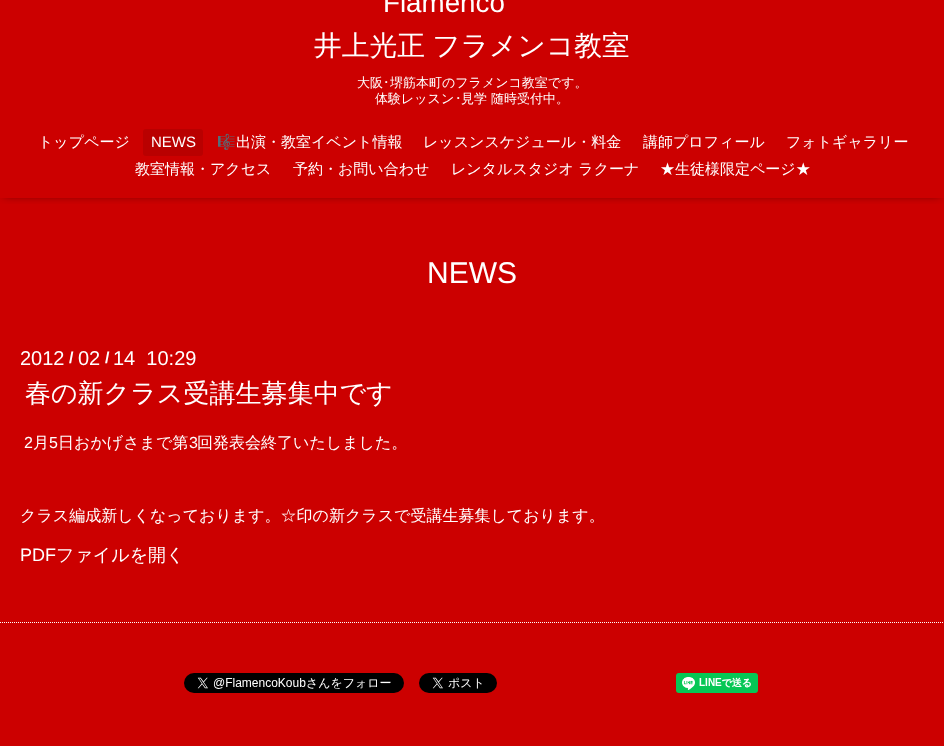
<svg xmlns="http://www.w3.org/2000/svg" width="944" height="746">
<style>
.a{font:27.75px Liberation Sans;fill:#fff}
.b{font:500 27.75px WenQuanYi Zen Hei;fill:#fff}
.c{font:500 13px WenQuanYi Zen Hei;fill:#fff}
.d{font:13px IPAPGothic;fill:#fff}
.e{font:500 15px WenQuanYi Zen Hei;fill:#fff}
.f{font:15px Liberation Sans;fill:#fff}
.g{font:15px Noto Color Emoji;fill:#fff}
.h{font:30px Liberation Sans;fill:#fff}
.i{font:20px Liberation Sans;fill:#fff}
.j{font:bold 16px Liberation Sans;fill:#fff}
.k{font:500 26px WenQuanYi Zen Hei;fill:#fff}
.l{font:16px Liberation Sans;fill:#fff}
.m{font:500 16px WenQuanYi Zen Hei;fill:#fff}
.n{font:18px Liberation Sans;fill:#fff}
.o{font:500 18px WenQuanYi Zen Hei;fill:#fff}
</style>
<defs>
<clipPath id="clip1"><path d="M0 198h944v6H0z"/></clipPath>
</defs>
<rect width="100%" height="100%" fill="#c00"/>
<g clip-path="url(#clip1)">
<path fill="#00000099" filter="blur(5px)" d="M4 -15h936v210H4z"/>
</g>
<rect fill="#b90000" x="143" y="129" width="60" height="27" rx="3"/>
<path fill="none" stroke="#fff" stroke-dasharray="1 1" d="M0 622.5h944"/>
<image href="1.png" x="184" y="673" width="220" height="20"/>
<image href="2.png" x="419" y="673" width="78" height="20"/>
<image href="3.png" x="676" y="673" width="82" height="20"/>
<text class="a" x="383" y="12">Flamenco</text>
<text class="b" x="314" y="55" word-spacing="-1">井上光正 フラメンコ教室</text>
<text class="c" x="357" y="87">大阪</text>
<text class="d" x="383" y="87">･</text>
<text class="c" x="390" y="87">堺筋本町のフラメンコ教室です。</text>
<text class="c" x="375" y="103">体験レッスン</text>
<text class="d" x="455" y="103">･</text>
<text class="c" x="461" y="103">見学 随時受付中。</text>
<text class="e" x="38" y="147">トップページ</text>
<text class="f" x="151" y="147">NEWS</text>
<text class="g" x="217" y="147">🎼</text>
<text class="e" x="236" y="147">出演・教室イベント情報</text>
<text class="e" x="423" y="147">レッスンスケジュール・料金</text>
<text class="e" x="643" y="147">講師プロフィール</text>
<text class="e" x="786" y="147">フォトギャラリー</text>
<text class="e" x="135" y="174">教室情報・アクセス</text>
<text class="e" x="293" y="174">予約・お問い合わせ</text>
<text class="e" x="451" y="174">レンタルスタジオ ラクーナ</text>
<text class="e" x="660" y="174">★生徒様限定ページ★</text>
<text class="h" x="427" y="283">NEWS</text>
<text class="i" x="20" y="365">2012</text>
<text class="j" x="69" y="363">/</text>
<text class="i" x="78" y="365">02</text>
<text class="j" x="105" y="363">/</text>
<text class="i" xml:space="preserve" x="113" y="365">14  10:29</text>
<text class="k" x="25" y="402">春の新クラス受講生募集中です</text>
<text class="l" x="24" y="448">2</text>
<text class="m" x="33" y="448">月</text>
<text class="l" x="49" y="448">5</text>
<text class="m" x="58" y="448">日おかげさまで第</text>
<text class="l" x="189" y="448">3</text>
<text class="m" x="197" y="448">回発表会終了いたしました。</text>
<text class="m" x="20" y="521">クラス編成新しくなっております。☆印の新クラスで受講生募集しております。</text>
<text class="n" x="20" y="561">PDF</text>
<text class="o" x="56" y="561">ファイルを開く</text>
</svg>
